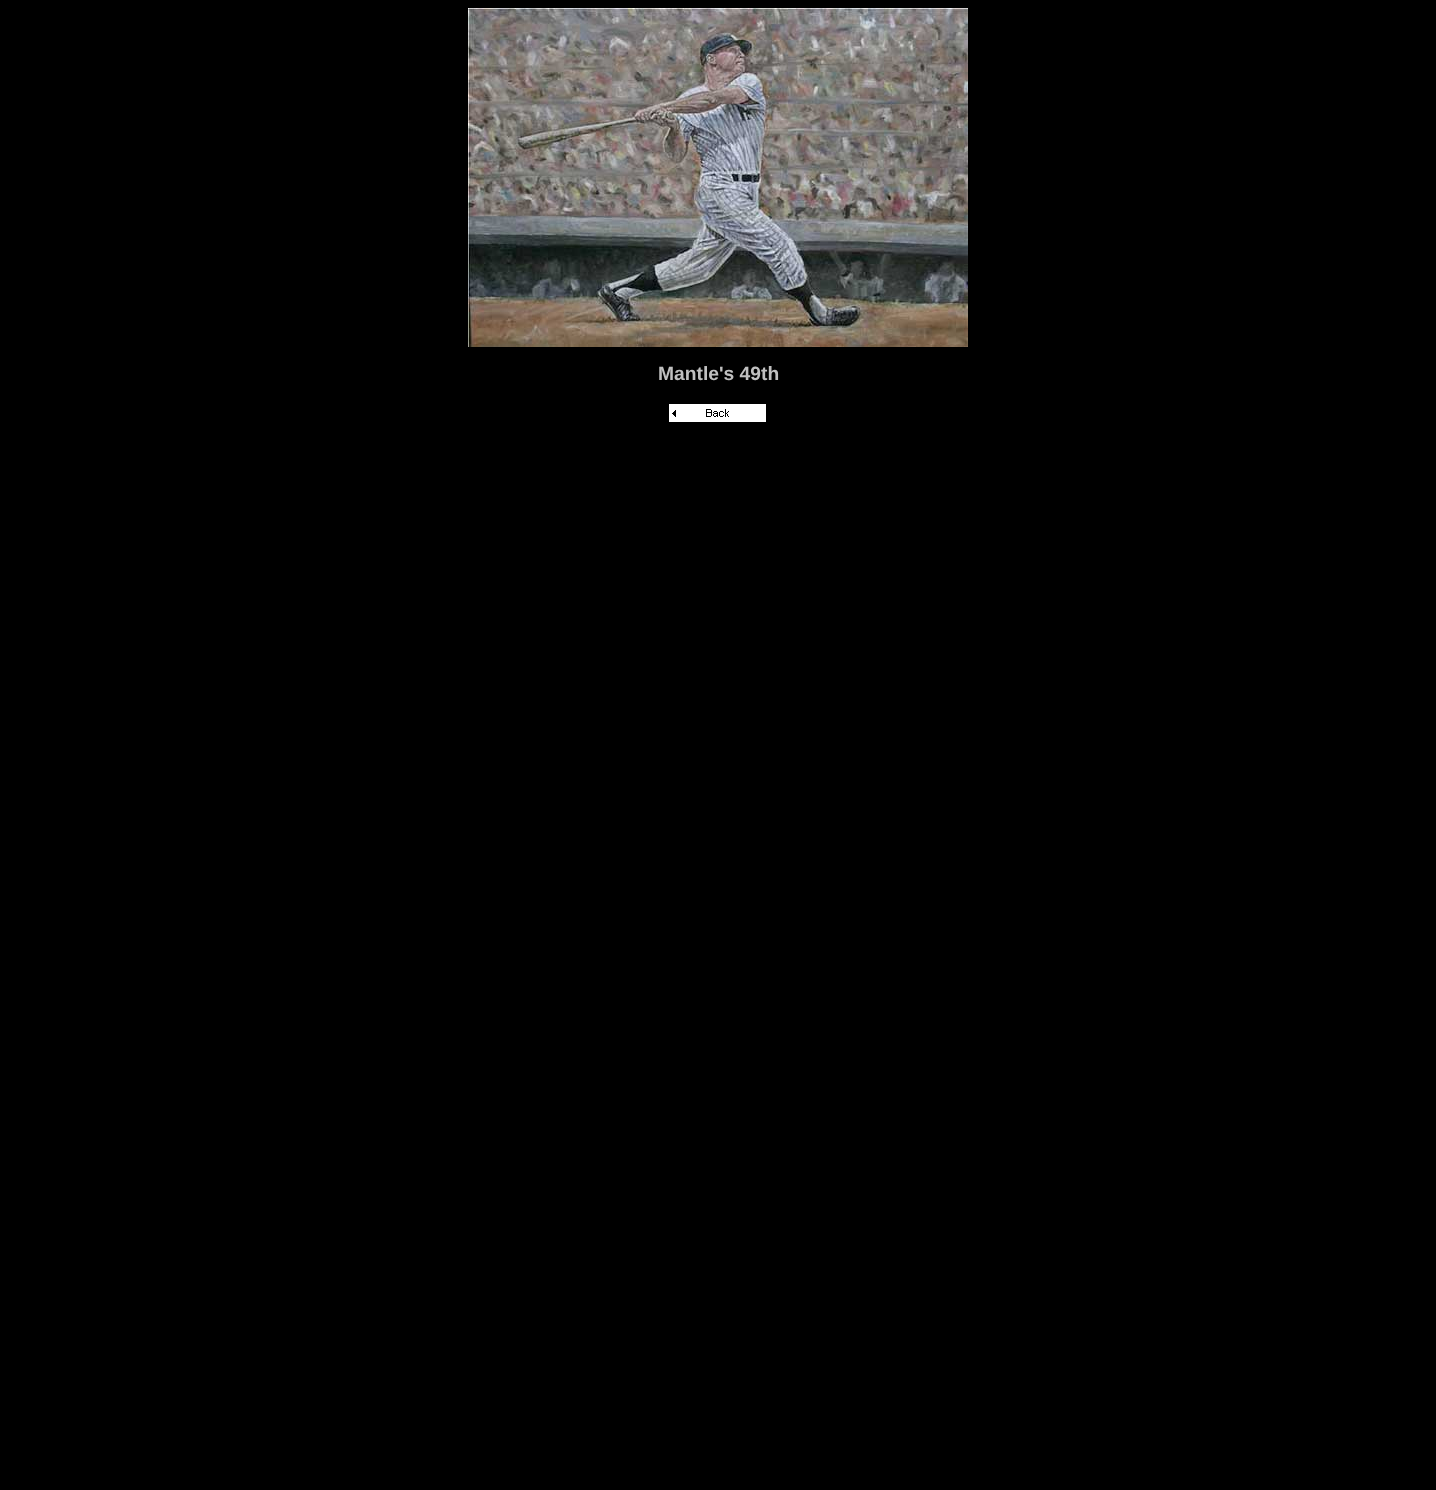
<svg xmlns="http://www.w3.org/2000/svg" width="1436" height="1490">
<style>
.a{font:bold 19.25px Liberation Sans;fill:#c0c0c0}
</style>
<rect width="100%" height="100%" fill="#000"/>
<image href="1.png" x="468" y="8" width="500" height="339"/>
<image href="2.png" x="669" y="404" width="97" height="18"/>
<text class="a" x="658" y="380">Mantle's 49th</text>
</svg>
